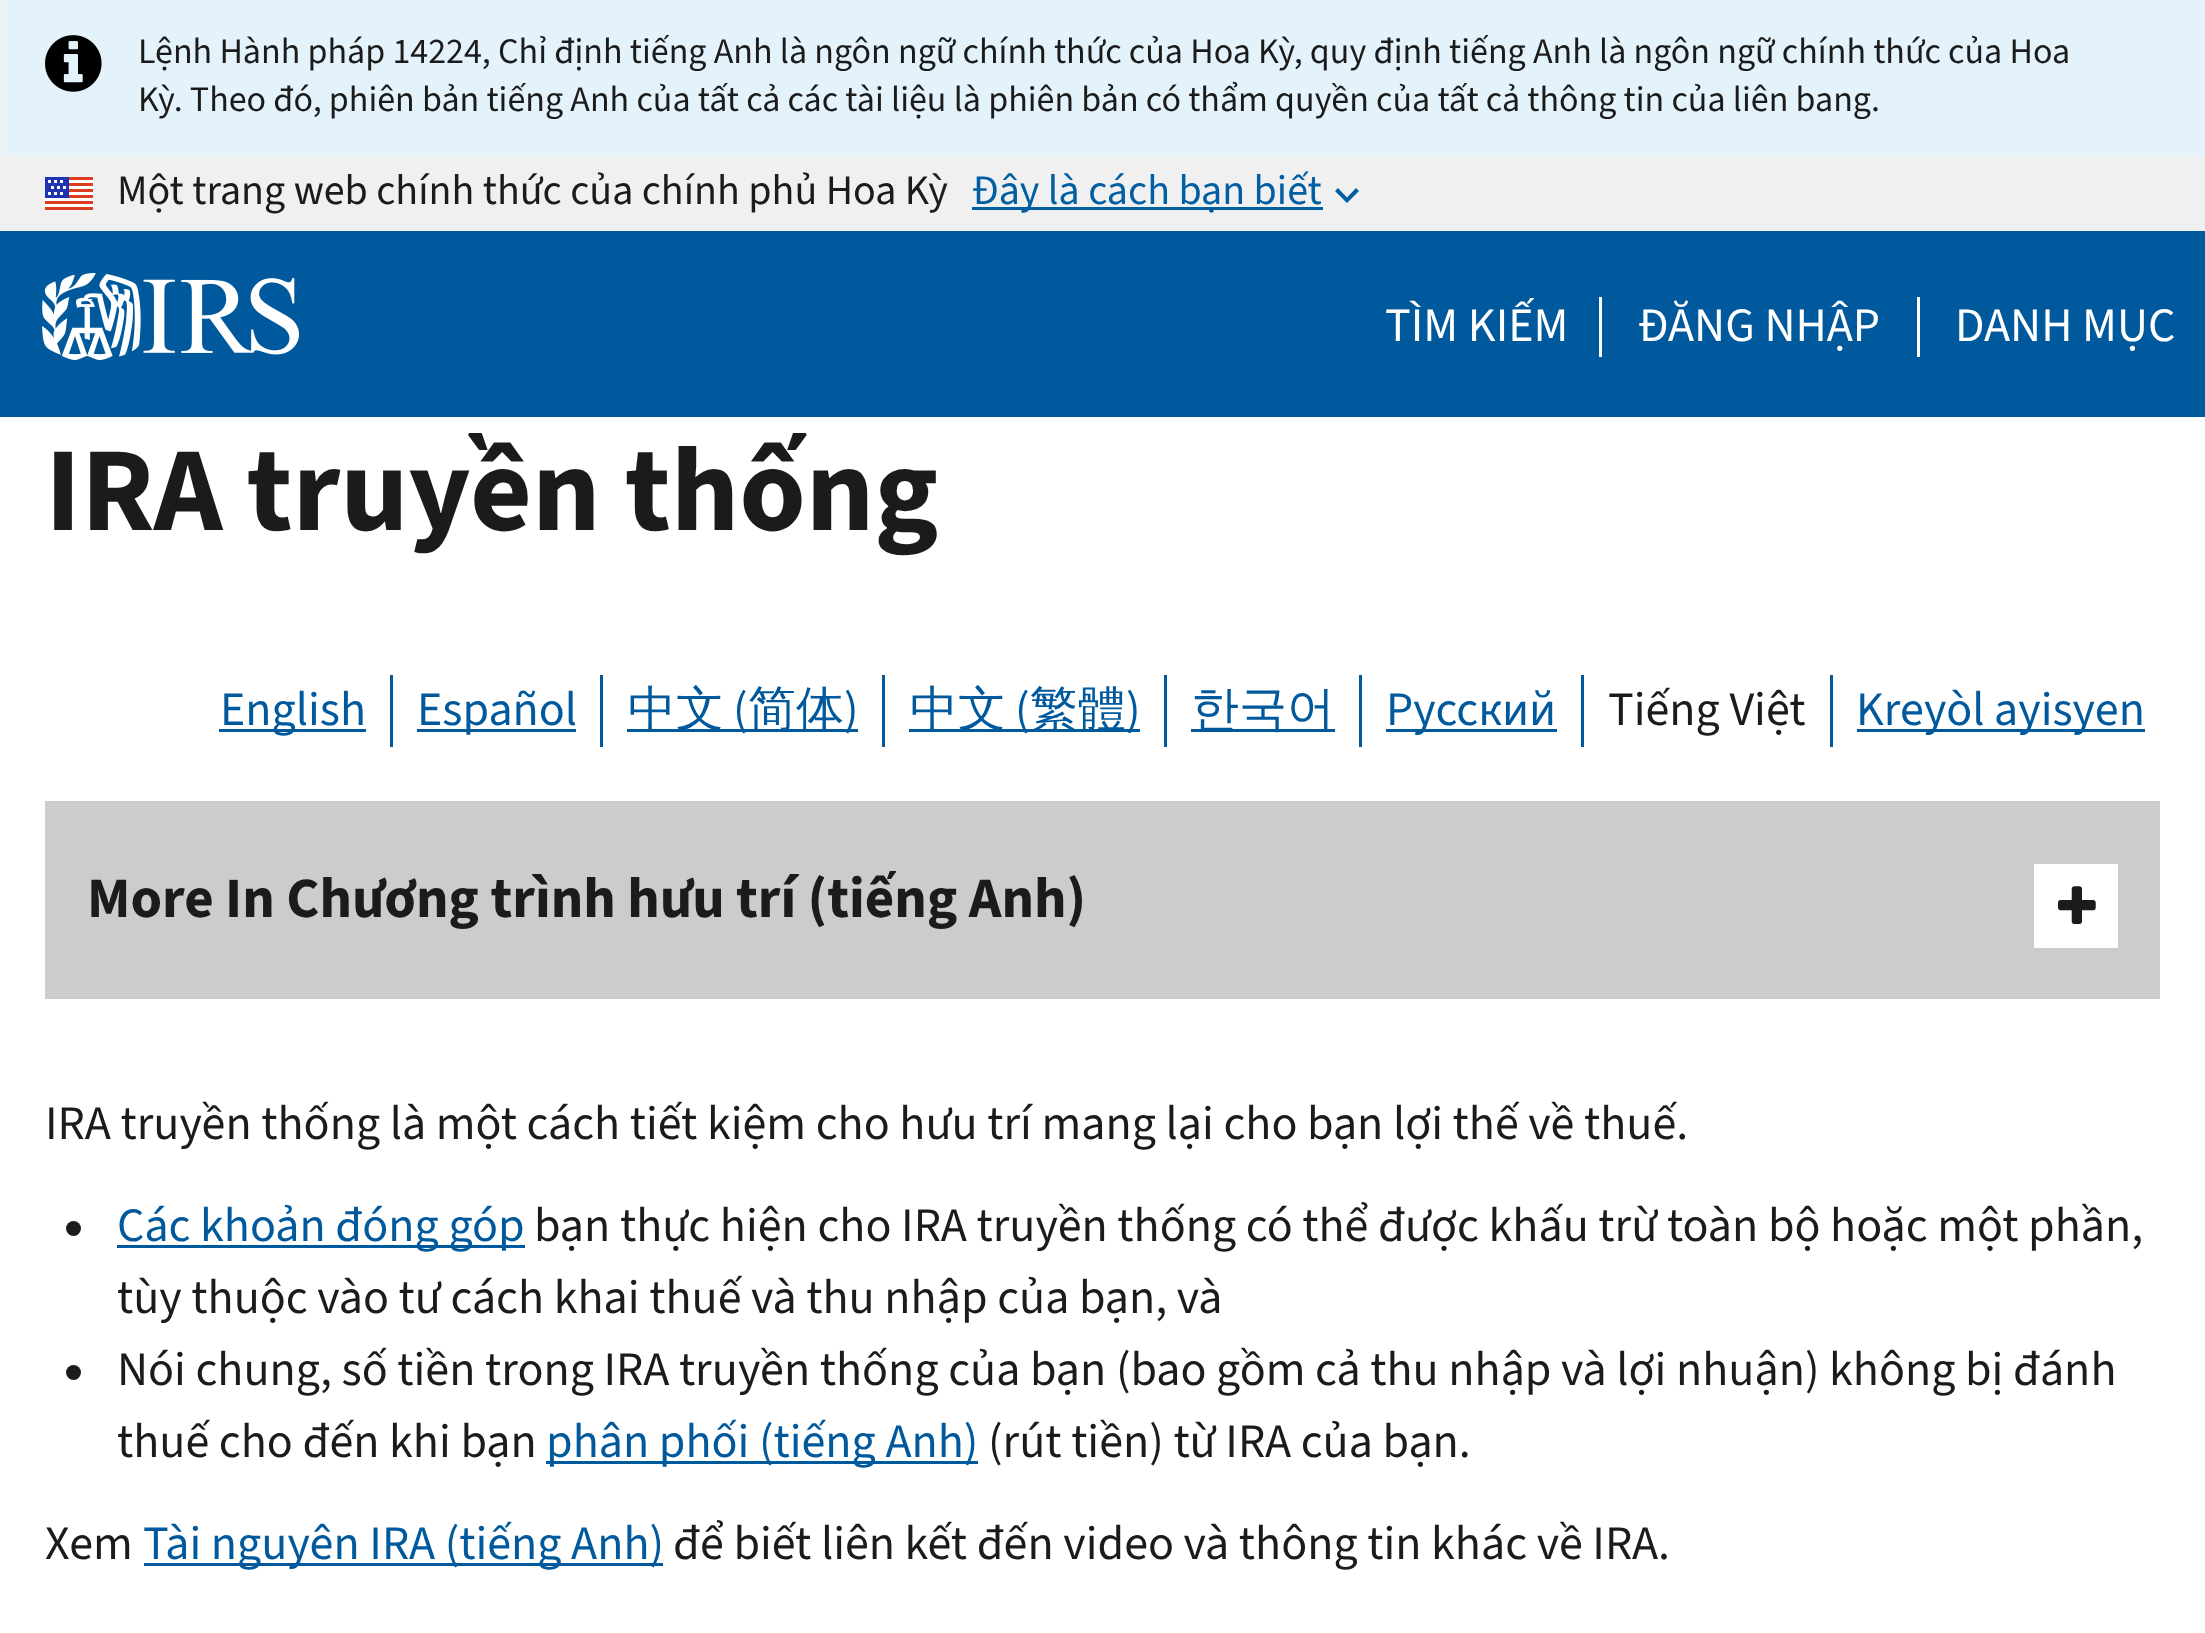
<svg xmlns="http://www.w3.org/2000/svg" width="2205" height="1633">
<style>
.a{font:36px 'Source Sans 3';fill:#1b1b1b}
.b{font:42px 'Source Sans 3';fill:#1b1b1b}
.c{font:42px 'Source Sans 3';fill:#005ea2}
.d{font:48px 'Source Sans 3';fill:#fff}
.e{font:bold 120px 'Source Sans 3';fill:#1b1b1b}
.f{font:48px 'Source Sans 3';fill:#00599c}
.g{font:500 48px WenQuanYi Zen Hei;fill:#00599c}
.h{font:48px 'Source Sans 3';fill:#1b1b1b}
.i{font:bold 57px 'Source Sans 3';fill:#1b1b1b}
</style>
<rect width="100%" height="100%" fill="#fff"/>
<path fill="#f0f0f0" d="M0 0h2205v231H0z"/>
<path fill="#e4f3fb" d="M3 0h2202v156H3z"/>
<image href="1.png" x="45" y="35" width="57" height="57"/>
<image href="2.png" x="45" y="177" width="48" height="33"/>
<path fill="#005ea2" d="M972 207h351v3H972z"/>
<path fill="#005ea2" d="M1356 188l-9 9.5l-9-9.5l-3 3l12 12l12-12z"/>
<path fill="#00599c" d="M0 231h2205v186H0z"/>
<image href="3.png" x="42" y="273" width="257" height="88"/>
<path fill="#fff" d="M1599 297h3v60H1599z"/>
<path fill="#fff" d="M1917 297h3v60H1917z"/>
<path fill="#00599c" d="M219 729h147v3H219z"/>
<path fill="#00599c" d="M390 675h3v72H390z"/>
<path fill="#00599c" d="M417 729h159v3H417z"/>
<path fill="#00599c" d="M600 675h3v72H600z"/>
<path fill="#00599c" d="M627 729h231v3H627z"/>
<path fill="#00599c" d="M882 675h3v72H882z"/>
<path fill="#00599c" d="M909 729h231v3H909z"/>
<path fill="#00599c" d="M1164 675h3v72H1164z"/>
<path fill="#00599c" d="M1191 729h144v3H1191z"/>
<path fill="#00599c" d="M1359 675h3v72H1359z"/>
<path fill="#00599c" d="M1386 729h171v3H1386z"/>
<path fill="#00599c" d="M1581 675h3v72H1581z"/>
<path fill="#00599c" d="M1830 675h3v72H1830z"/>
<path fill="#00599c" d="M1857 729h288v3H1857z"/>
<path fill="#ccc" d="M45 801h2115v198H45z"/>
<path fill="#fff" d="M2034 864h84v84H2034z"/>
<image href="4.png" x="2058" y="886" width="38" height="38"/>
<circle fill="#1b1b1b" cx="73.5" cy="1228.5" r="7.5"/>
<path fill="#00599c" d="M117 1245h408v3H117z"/>
<circle fill="#1b1b1b" cx="73.5" cy="1372.5" r="7.5"/>
<path fill="#00599c" d="M546 1461h432v3H546z"/>
<path fill="#00599c" d="M144 1563h519v3H144z"/>
<text class="a" x="138" y="63">Lệnh Hành pháp 14224, Chỉ định tiếng Anh là ngôn ngữ chính thức của Hoa Kỳ, quy định tiếng Anh là ngôn ngữ chính thức của Hoa</text>
<text class="a" x="138" y="111">Kỳ. Theo đó, phiên bản tiếng Anh của tất cả các tài liệu là phiên bản có thẩm quyền của tất cả thông tin của liên bang.</text>
<text class="b" x="117" y="204">Một trang web chính thức của chính phủ Hoa Kỳ</text>
<text class="c" x="972" y="204">Đây là cách bạn biết</text>
<text class="d" x="1385" y="341">TÌM KIẾM</text>
<text class="d" x="1638" y="341">ĐĂNG NHẬP</text>
<text class="d" x="1955" y="341">DANH MỤC</text>
<text class="e" x="45" y="530">IRA truyền thống</text>
<text class="f" x="220" y="725">English</text>
<text class="f" x="417" y="725">Español</text>
<text class="g" x="628" y="725">中文</text>
<text class="f" x="733" y="725">(</text>
<text class="g" x="748" y="725">简体</text>
<text class="f" x="844" y="725">)</text>
<text class="g" x="910" y="725">中文</text>
<text class="f" x="1015" y="725">(</text>
<text class="g" x="1030" y="725">繁體</text>
<text class="f" x="1126" y="725">)</text>
<text class="g" x="1191" y="725">한국어</text>
<text class="f" x="1386" y="725">Русский</text>
<text class="h" x="1608" y="725">Tiếng Việt</text>
<text class="f" x="1856" y="725">Kreyòl ayisyen</text>
<text class="i" x="87" y="917">More In Chương trình hưu trí (tiếng Anh)</text>
<text class="h" x="45" y="1139">IRA truyền thống là một cách tiết kiệm cho hưu trí mang lại cho bạn lợi thế về thuế.</text>
<text class="f" x="117" y="1241">Các khoản đóng góp</text>
<text class="h" x="534" y="1241">bạn thực hiện cho IRA truyền thống có thể được khấu trừ toàn bộ hoặc một phần,</text>
<text class="h" x="117" y="1313">tùy thuộc vào tư cách khai thuế và thu nhập của bạn, và</text>
<text class="h" x="117" y="1385">Nói chung, số tiền trong IRA truyền thống của bạn (bao gồm cả thu nhập và lợi nhuận) không bị đánh</text>
<text class="h" x="117" y="1457">thuế cho đến khi bạn</text>
<text class="f" x="546" y="1457">phân phối (tiếng Anh)</text>
<text class="h" x="988" y="1457">(rút tiền) từ IRA của bạn.</text>
<text class="h" x="45" y="1559">Xem</text>
<text class="f" x="143" y="1559">Tài nguyên IRA (tiếng Anh)</text>
<text class="h" x="673" y="1559">để biết liên kết đến video và thông tin khác về IRA.</text>
</svg>
